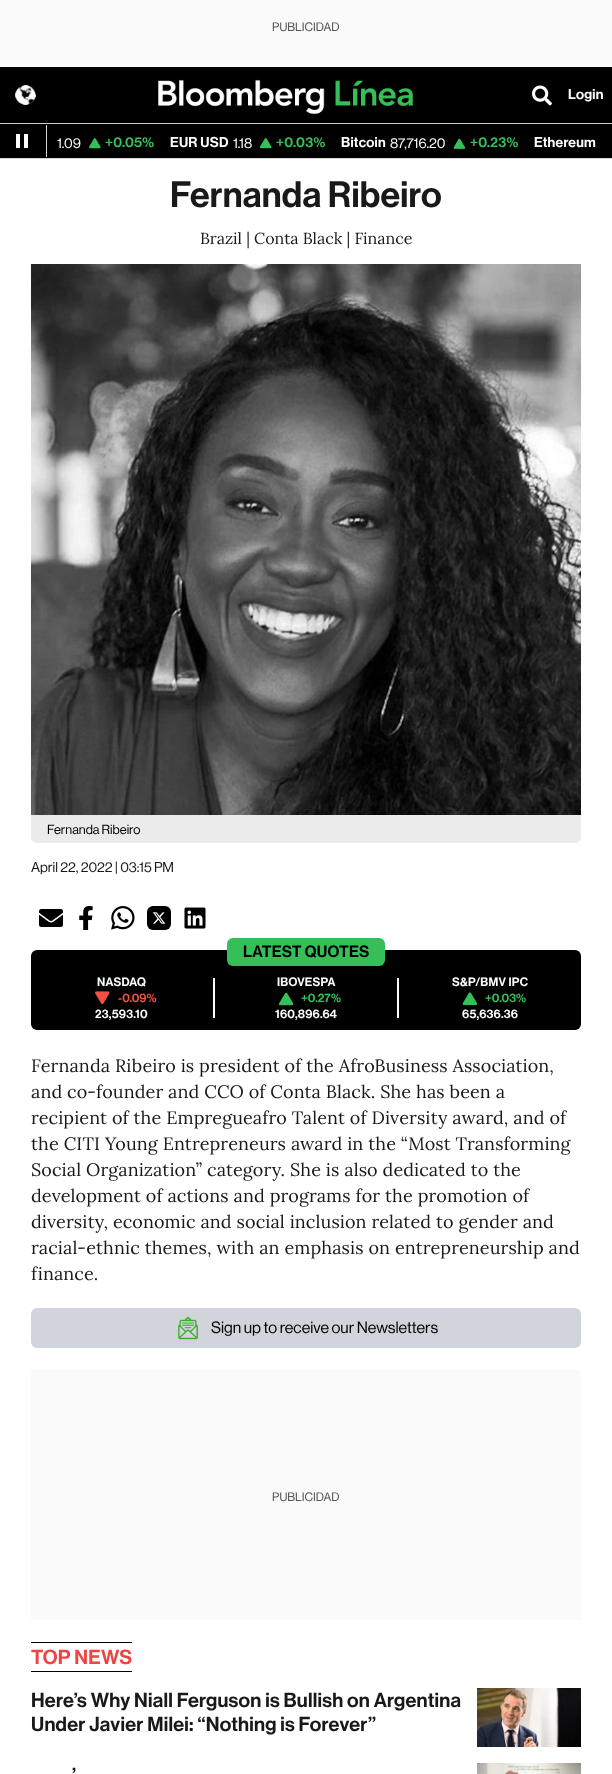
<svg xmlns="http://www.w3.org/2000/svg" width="612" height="1774">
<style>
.a{font:500 12px 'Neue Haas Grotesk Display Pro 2';fill:#555}
.b{font:500 14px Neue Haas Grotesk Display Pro;letter-spacing:0.25px;fill:#fff}
.c{font:500 14px 'Neue Haas Grotesk Display Pro 2';fill:#fff}
.d{font:500 14px Neue Haas Grotesk Display Pro;letter-spacing:0.25px;fill:#36bf58}
.e{font:500 36px Neue Haas Grotesk Display Pro;letter-spacing:0.25px;fill:#191919}
.f{font:16px Lora;fill:#191919}
.g{font:500 13px 'Neue Haas Grotesk Display Pro 2';fill:#000}
.h{font:500 14px 'Neue Haas Grotesk Display Pro 2';fill:#191919}
.i{font:500 16px Neue Haas Grotesk Display Pro;letter-spacing:0.25px;fill:#000}
.j{font:500 12px Neue Haas Grotesk Display Pro;letter-spacing:0.25px;fill:#fff}
.k{font:500 12px Neue Haas Grotesk Display Pro;fill:#f05143}
.l{font:500 12px Neue Haas Grotesk Display Pro;fill:#36bf58}
.m{font:18px Lora;letter-spacing:0.1px;fill:#191919}
.n{font:500 16px 'Neue Haas Grotesk Display Pro 2';fill:#000}
.o{font:500 20px Neue Haas Grotesk Display Pro;letter-spacing:0.25px;fill:#ef4444}
.p{font:500 20px Neue Haas Grotesk Display Pro;letter-spacing:0.25px;fill:#191919}
</style>
<rect width="100%" height="100%" fill="#fff"/>
<path fill="#fafafa" d="M0 0h612v66H0z"/>
<path fill="#000" d="M0 124h612v34H0z"/>
<path fill="#d1d5db" d="M0 123h612v1H0z"/>
<path fill="#d1d5db" d="M46 125h1v32H46z"/>
<path fill="#0000000d" filter="blur(1px)" d="M0 68h612v56H0z"/>
<path fill="#000" d="M0 67h612v56H0z"/>
<image href="1.png" x="15" y="85" width="21" height="20"/>
<image href="2.png" x="158" y="79" width="255" height="36"/>
<image href="3.png" x="532" y="85" width="20" height="21"/>
<path fill="#d1d5db" d="M0 158h612v1H0z"/>
<image href="4.png" x="16" y="134" width="12" height="14"/>
<image href="5.png" x="89" y="138" width="12" height="11"/>
<image href="6.png" x="260" y="138" width="12" height="11"/>
<image href="7.png" x="453" y="138" width="13" height="11"/>
<image href="8.png" x="31" y="264" width="550" height="551"/>
<path fill="#ebebeb" d="M31 815h550v22c0 3.5-2.5 6-6 6h-538c-3.5 0-6-2.5-6-6z"/>
<image href="9.png" x="39" y="909" width="24" height="18"/>
<image href="10.png" x="79" y="906" width="14" height="24"/>
<image href="11.png" x="111" y="906" width="24" height="24"/>
<rect fill="#000" x="147" y="906" width="24" height="24" rx="6"/>
<image href="12.png" x="152" y="912" width="14" height="12"/>
<image href="13.png" x="184" y="907" width="22" height="22"/>
<rect fill="#000" x="31" y="950" width="550" height="80" rx="6"/>
<rect fill="#36bf58" x="227" y="938" width="158" height="28" rx="6"/>
<image href="14.png" x="95" y="991" width="15" height="13"/>
<path fill="#fff" d="M213 978h2v40H213z"/>
<image href="15.png" x="279" y="992" width="15" height="14"/>
<path fill="#fff" d="M397 978h2v40H397z"/>
<image href="16.png" x="462" y="992" width="15" height="14"/>
<rect fill="#d1d5db" x="31" y="1308" width="550" height="40" rx="6"/>
<image href="17.png" x="178" y="1316" width="20" height="24"/>
<path fill="#fafafa" d="M31 1370h550v250H31z"/>
<path fill="#000" d="M31 1642h101v1H31z"/>
<path fill="#000" d="M31 1671h101v1H31z"/>
<image href="18.png" x="477" y="1688" width="104" height="59"/>
<image href="19.png" x="477" y="1763" width="104" height="11"/>
<text class="a" x="272" y="31">PUBLICIDAD</text>
<text class="b" x="568" y="99">Login</text>
<text class="c" x="57" y="148">1.09</text>
<text class="d" x="105" y="147">+0.05%</text>
<text class="b" x="170" y="147">EUR USD</text>
<text class="c" x="233" y="148">1.18</text>
<text class="d" x="276" y="147">+0.03%</text>
<text class="b" x="341" y="147">Bitcoin</text>
<text class="c" x="390" y="148">87,716.20</text>
<text class="d" x="470" y="147">+0.23%</text>
<text class="b" x="534" y="147">Ethereum</text>
<text class="e" x="170" y="207">Fernanda Ribeiro</text>
<text class="f" x="200" y="244">Brazil | Conta Black | Finance</text>
<text class="g" x="47" y="834">Fernanda Ribeiro</text>
<text class="h" x="31" y="872">April 22, 2022 | 03:15 PM</text>
<text class="i" x="243" y="957">LATEST QUOTES</text>
<text class="j" x="97" y="986">NASDAQ</text>
<text class="k" x="118" y="1002">-0.09%</text>
<text class="j" x="95" y="1018">23,593.10</text>
<text class="j" x="277" y="986">IBOVESPA</text>
<text class="l" x="301" y="1002">+0.27%</text>
<text class="j" x="275" y="1018">160,896.64</text>
<text class="j" x="452" y="986">S&amp;P/BMV IPC</text>
<text class="l" x="485" y="1002">+0.03%</text>
<text class="j" x="462" y="1018">65,636.36</text>
<text class="m" x="31" y="1072">Fernanda Ribeiro is president of the AfroBusiness Association,</text>
<text class="m" x="31" y="1098">and co-founder and CCO of Conta Black. She has been a</text>
<text class="m" x="31" y="1124">recipient of the Empregueafro Talent of Diversity award, and of</text>
<text class="m" x="31" y="1150">the CITI Young Entrepreneurs award in the “Most Transforming</text>
<text class="m" x="31" y="1176">Social Organization” category. She is also dedicated to the</text>
<text class="m" x="31" y="1202">development of actions and programs for the promotion of</text>
<text class="m" x="31" y="1228">diversity, economic and social inclusion related to gender and</text>
<text class="m" x="31" y="1254">racial-ethnic themes, with an emphasis on entrepreneurship and</text>
<text class="m" x="31" y="1280">finance.</text>
<text class="n" x="211" y="1333">Sign up to receive our Newsletters</text>
<text class="a" x="272" y="1501">PUBLICIDAD</text>
<text class="o" x="31" y="1664">TOP NEWS</text>
<text class="p" x="31" y="1707">Here’s Why Niall Ferguson is Bullish on Argentina</text>
<text class="p" x="31" y="1731">Under Javier Milei: “Nothing is Forever”</text>
<text class="p" x="72" y="1782">’</text>
</svg>
